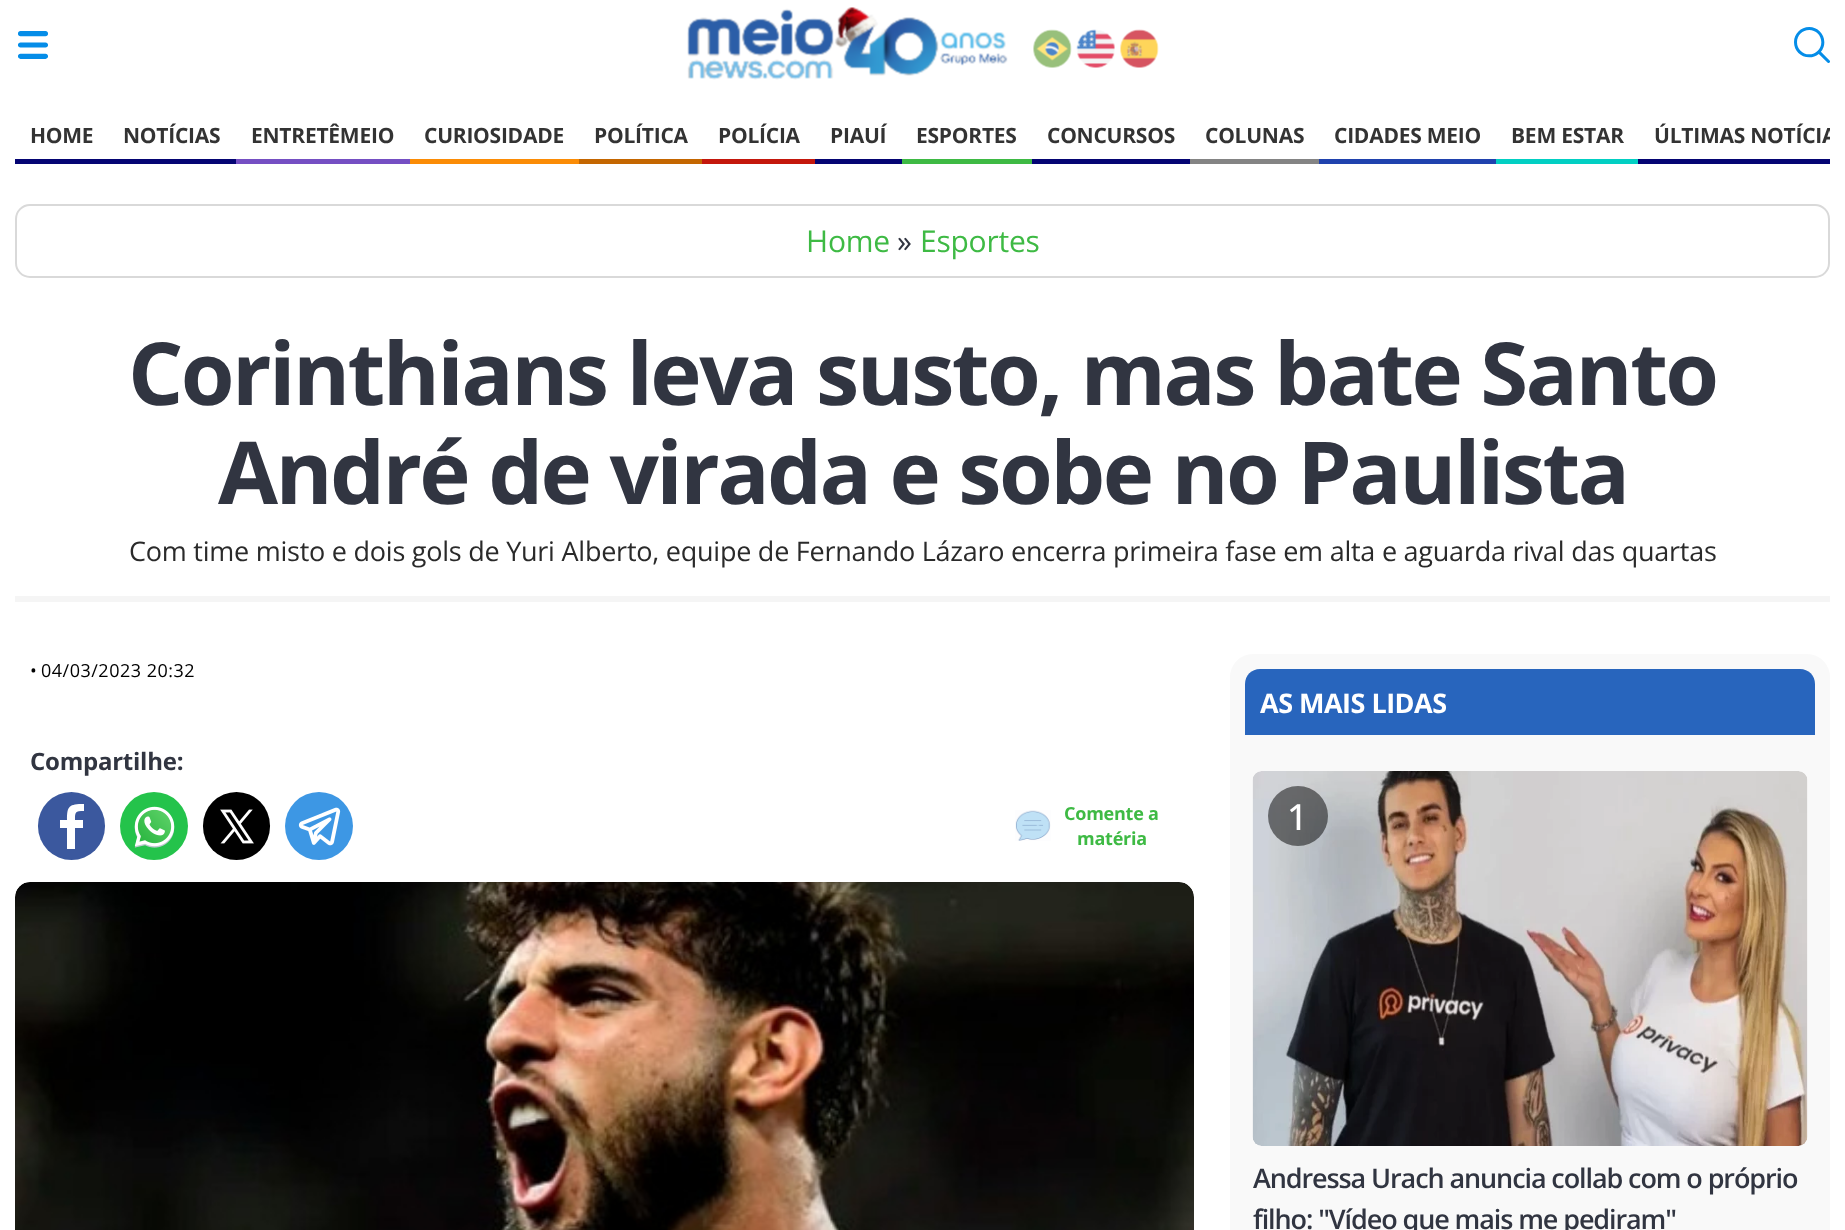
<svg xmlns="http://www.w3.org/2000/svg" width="1845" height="1230">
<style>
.a{font:bold 21px Open Sans;letter-spacing:-0.24px;fill:#333}
.b{font:30px Open Sans;letter-spacing:-0.24px;fill:#3eba44}
.c{font:30px Open Sans;letter-spacing:-0.24px;fill:#313541}
.d{font:bold 87px Open Sans;letter-spacing:-2.6px;fill:#313541}
.e{font:27px Open Sans;letter-spacing:-0.24px;fill:#2a2a2a}
.f{font:18px Open Sans;letter-spacing:-0.24px;fill:#000}
.g{font:18px Open Sans;letter-spacing:0.5px;fill:#000}
.h{font:bold 24px Open Sans;letter-spacing:-0.24px;fill:#313541}
.i{font:bold 18px Open Sans;letter-spacing:-0.24px;fill:#3eba44}
.j{font:bold 27px Open Sans;letter-spacing:-0.5px;fill:#fff}
.k{font:500 36px Open Sans;letter-spacing:-0.24px;fill:#fff}
.l{font:600 27px Open Sans;letter-spacing:-1.1px;fill:#313541}
</style>
<defs>
<clipPath id="clip1"><path d="M15 87h1815v87H15z"/></clipPath>
</defs>
<rect width="100%" height="100%" fill="#fff"/>
<image href="1.png" x="18" y="31" width="30" height="28"/>
<image href="2.png" x="687" y="7" width="321" height="73"/>
<image href="3.png" x="1033" y="29" width="39" height="39"/>
<image href="4.png" x="1076" y="29" width="39" height="39"/>
<image href="5.png" x="1120" y="29" width="39" height="39"/>
<image href="6.png" x="1794" y="27" width="36" height="36"/>
<path fill="#040473" d="M15 159h221v5H15z"/>
<path fill="#754fc3" d="M236 159h174v5H236z"/>
<path fill="#fb8c06" d="M410 159h169v5H410z"/>
<path fill="#c46600" d="M579 159h123v5H579z"/>
<path fill="#c4170c" d="M702 159h113v5H702z"/>
<path fill="#040473" d="M815 159h87v5H815z"/>
<path fill="#3eba44" d="M902 159h130v5H902z"/>
<path fill="#040473" d="M1032 159h158v5H1032z"/>
<path fill="#848484" d="M1190 159h129v5H1190z"/>
<path fill="#2042ae" d="M1319 159h177v5H1319z"/>
<path fill="#02cfc3" d="M1496 159h142v5H1496z"/>
<path fill="#040473" d="M1638 159h192v5H1638z"/>
<rect fill="none" stroke="#d9d9d9" stroke-width="2" x="16" y="205" width="1813" height="72" rx="14"/>
<path fill="#f5f5f5" d="M15 596h1815v6H15z"/>
<rect fill="#3b589e" x="38" y="792" width="67" height="68" rx="33.5"/>
<path fill="#fff" d="M84 811c-9 0-9 1-9 9h8v8h-8v21h-8v-21h-7v-8h7c0-14 2-16 17-16z"/>
<circle fill="#24c34b" cx="154" cy="826" r="34"/>
<image href="7.png" x="134" y="806" width="41" height="42"/>
<rect fill="#000" x="203" y="792" width="67" height="68" rx="33.5"/>
<image href="8.png" x="220" y="809" width="34" height="35"/>
<circle fill="#3d97e4" cx="319" cy="826" r="34"/>
<image href="9.png" x="298" y="807" width="43" height="39"/>
<image href="10.png" x="1015" y="810" width="36" height="31"/>
<image href="11.png" x="15" y="882" width="1179" height="348"/>
<rect fill="#f9f9f9" x="1230" y="654" width="600" height="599" rx="23"/>
<path fill="#2865bd" d="M1260 669h540c8.5 0 15 6.5 15 15v51h-570v-51c0-8.5 6.5-15 15-15z"/>
<image href="12.png" x="1252" y="771" width="556" height="375"/>
<circle fill="#00000080" cx="1298" cy="816" r="30"/>
<text class="a" x="30" y="143">HOME</text>
<text class="a" x="123" y="143">NOTÍCIAS</text>
<text class="a" x="251" y="143">ENTRETÊMEIO</text>
<text class="a" x="424" y="143">CURIOSIDADE</text>
<text class="a" x="594" y="143">POLÍTICA</text>
<text class="a" x="718" y="143">POLÍCIA</text>
<text class="a" x="830" y="143">PIAUÍ</text>
<text class="a" x="916" y="143">ESPORTES</text>
<text class="a" x="1047" y="143">CONCURSOS</text>
<text class="a" x="1205" y="143">COLUNAS</text>
<text class="a" x="1334" y="143">CIDADES MEIO</text>
<text class="a" x="1511" y="143">BEM ESTAR</text>
<g clip-path="url(#clip1)">
<text class="a" x="1654" y="143">ÚLTIMAS NOTÍCIA</text>
</g>
<text class="b" x="806" y="252">Home</text>
<text class="c" x="897" y="252">»</text>
<text class="b" x="920" y="252">Esportes</text>
<text class="d" x="128" y="405">Corinthians leva susto, mas bate Santo</text>
<text class="d" x="218" y="504">André de virada e sobe no Paulista</text>
<text class="e" x="129" y="561">Com time misto e dois gols de Yuri Alberto, equipe de Fernando Lázaro encerra primeira fase em alta e aguarda rival das quartas</text>
<text class="f" x="30" y="677">•</text>
<text class="g" x="41" y="677">04/03/2023 20:32</text>
<text class="h" x="30" y="770">Compartilhe:</text>
<text class="i" x="1064" y="820">Comente a</text>
<text class="i" x="1077" y="845">matéria</text>
<text class="j" x="1260" y="713">AS MAIS LIDAS</text>
<text class="k" x="1287" y="830">1</text>
<text class="l" x="1253" y="1188">Andressa Urach anuncia collab com o próprio</text>
<text class="l" x="1253" y="1229">filho: "Vídeo que mais me pediram"</text>
</svg>
